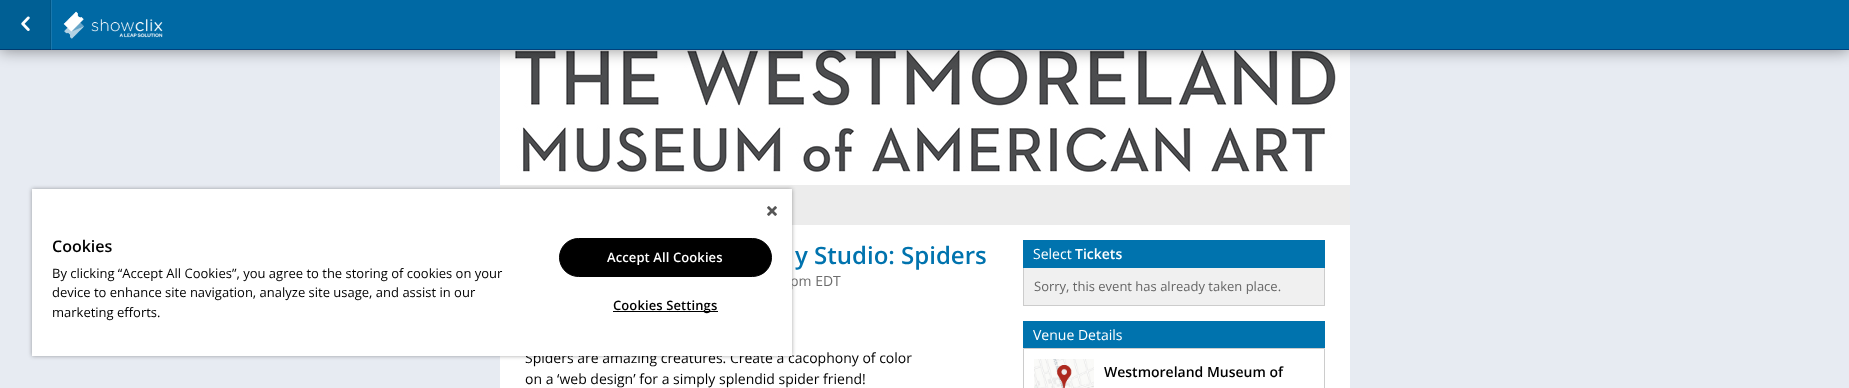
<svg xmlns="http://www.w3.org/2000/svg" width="1849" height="388">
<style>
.a{font:600 24px Open Sans;fill:#0073ae}
.b{font:14px Open Sans;fill:#6d6d6d}
.c{font:14px Open Sans;fill:#000}
.d{font:600 13px Open Sans;letter-spacing:0.1px;fill:#000}
.e{font:600 13px Open Sans;letter-spacing:0.1px;fill:#fff}
.f{font:13px Open Sans;fill:#000}
.g{font:600 16px Open Sans;fill:#000}
.h{font:14px Open Sans;fill:#fff}
.i{font:600 14px Open Sans;fill:#fff}
.j{font:13px Open Sans;fill:#666}
.k{font:600 14px Open Sans;fill:#000}
</style>
<rect width="100%" height="100%" fill="#e7ebf2"/>
<image href="3.png" x="500" y="50" width="850" height="135"/>
<path fill="#00000066" filter="blur(7.5px)" d="M0 1h1849v50H0z"/>
<path fill="#0069a4" d="M52 0h1797v49H52z"/>
<path fill="#005f94" d="M0 0h50v49H0z"/>
<path fill="#005685" d="M50 0h1v50H50z"/>
<path fill="#1a78ad" d="M51 0h1v50H51z"/>
<path fill="#00417c" d="M52 49h1797v1H52z"/>
<path fill="#003b70" d="M0 49h51v1H0z"/>
<path fill="#003565" d="M50 49h1v1H50z"/>
<path fill="#1a5489" d="M51 49h1v1H51z"/>
<image href="1.png" x="21" y="16" width="9" height="15"/>
<image href="2.png" x="63" y="11" width="100" height="28"/>
<path fill="#fff" d="M500 225h850v163H500z"/>
<path fill="#ececec" d="M500 185h850v40H500z"/>
<path fill="#00000059" filter="blur(2px)" d="M32 189h760v167H32z"/>
<path fill="#0073ae" d="M1023 240h302v28H1023z"/>
<path fill="#f0f0f0" d="M1024 268h300v37H1024z"/>
<path fill="#ccc" d="M1324 268h1v38H1324z"/>
<path fill="#ccc" d="M1023 305h302v1H1023z"/>
<path fill="#ccc" d="M1023 268h1v38H1023z"/>
<path fill="#0073ae" d="M1023 321h302v27H1023z"/>
<path fill="none" stroke="#ccc" d="M1023.5 348.5h301v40H1023.5z"/>
<image href="5.png" x="1034" y="359" width="60" height="29"/>
<text class="a" x="795" y="264">y Studio: Spiders</text>
<text class="b" x="790" y="286">pm EDT</text>
<text class="c" x="525" y="363">Spiders are amazing creatures. Create a cacophony of color</text>
<path fill="#fff" d="M32 189h760v167H32z"/>
<path fill="#000" d="M613 311h105v1H613z"/>
<text class="d" x="613" y="310">Cookies Settings</text>
<rect fill="#000" stroke="#000" x="559.5" y="238.5" width="212" height="38" rx="19"/>
<text class="e" x="607" y="262">Accept All Cookies</text>
<text class="f" x="52" y="317">marketing efforts.</text>
<text class="f" x="52" y="297">device to enhance site navigation, analyze site usage, and assist in our</text>
<text class="f" x="52" y="278">By clicking “Accept All Cookies”, you agree to the storing of cookies on your</text>
<text class="g" x="52" y="252">Cookies</text>
<image href="4.png" x="767" y="206" width="10" height="10"/>
<text class="c" x="525" y="384">on a ‘web design’ for a simply splendid spider friend!</text>
<text class="h" x="1033" y="259">Select</text>
<text class="i" x="1075" y="259">Tickets</text>
<text class="j" x="1034" y="291">Sorry, this event has already taken place.</text>
<text class="h" x="1033" y="340">Venue Details</text>
<text class="k" x="1104" y="377">Westmoreland Museum of</text>
</svg>
